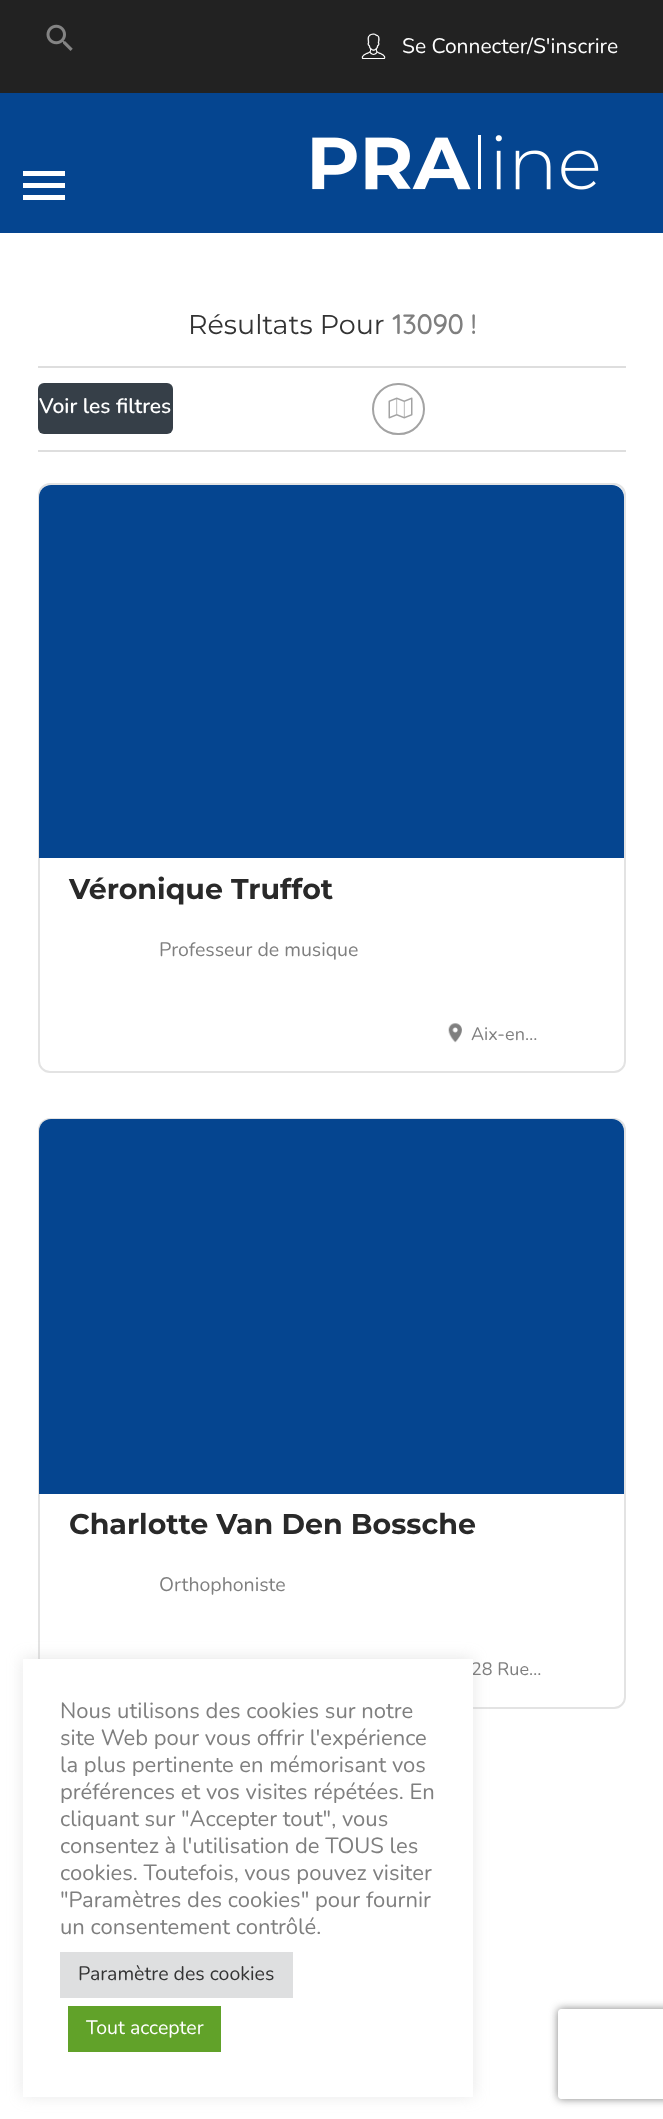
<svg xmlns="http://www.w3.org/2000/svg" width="663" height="2119">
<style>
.a{font:21px Nunito;fill:#fff}
.b{font:27px Montserrat;fill:#333}
.c{font:bold 27px Quicksand;fill:#7f7f7f}
.d{font:600 21px Nunito;fill:#fff}
.e{font:bold 28.5px Montserrat;fill:#292929}
.f{font:19.5px Nunito;fill:#7f7f7f}
.g{font:18px Nunito;fill:#7f7f7f}
.h{font:22px Nunito;fill:#7f7f7f}
.i{font:19.5px Nunito;fill:#333}
.j{font:19.5px Nunito;fill:#fff}
</style>
<defs>
<clipPath id="clip1"><path d="M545 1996h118v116h-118zm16 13h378c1.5 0 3 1.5 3 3v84c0 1.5-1.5 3-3 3h-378c-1.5 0-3-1.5-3-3v-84c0-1.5 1.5-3 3-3z" clip-rule="evenodd"/></clipPath>
</defs>
<rect width="100%" height="100%" fill="#fff"/>
<path fill="#222" d="M0 0h663v93H0z"/>
<image href="1.png" x="46" y="24" width="27" height="27"/>
<image href="2.png" x="361" y="33" width="25" height="26"/>
<path fill="#054590" d="M0 93h663v140H0z"/>
<path fill="#fff" d="M23 171h42v5H23z"/>
<path fill="#fff" d="M23 183h42v5H23z"/>
<path fill="#fff" d="M23 195h42v5H23z"/>
<image href="3.png" x="312" y="135" width="287" height="55"/>
<path fill="#dedede" d="M38 366h588v2H38z"/>
<path fill="#dedede" d="M38 450h588v2H38z"/>
<rect fill="#363f48" x="38" y="383" width="135" height="51" rx="6"/>
<rect fill="none" stroke="#a3a3a3" stroke-width="2" x="373" y="384" width="51" height="50" rx="25"/>
<image href="4.png" x="388" y="397" width="25" height="22"/>
<rect fill="none" stroke="#e3e3e3" stroke-width="2" x="39" y="484" width="586" height="588" rx="11"/>
<path fill="#054590" d="M51 485h561c6.5 0 12 5.5 12 12v361h-585v-361c0-6.5 5.5-12 12-12z"/>
<image href="5.png" x="448" y="1023" width="14" height="20"/>
<rect fill="none" stroke="#e3e3e3" stroke-width="2" x="39" y="1119" width="586" height="589" rx="11"/>
<path fill="#054590" d="M51 1119h561c6.5 0 12 5.5 12 12v363h-585v-363c0-6.5 5.5-12 12-12z"/>
<path fill="#acabab4d" filter="blur(7.5px)" d="M23 1658h450v438H23z"/>
<g clip-path="url(#clip1)">
<rect fill="#808080" filter="blur(4px)" x="558" y="2009" width="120" height="90" rx="3"/>
</g>
<text class="a" x="402" y="53">Se Connecter/S'inscrire</text>
<text class="b" x="188" y="334">Résultats Pour</text>
<text class="c" x="392" y="334">13090 !</text>
<text class="d" x="39" y="413">Voir les filtres</text>
<text class="e" x="69" y="899">Véronique Truffot</text>
<text class="f" x="159" y="956">Professeur de musique</text>
<text class="g" x="471" y="1040">Aix-en…</text>
<text class="e" x="69" y="1534">Charlotte Van Den Bossche</text>
<text class="f" x="159" y="1591">Orthophoniste</text>
<text class="g" x="471" y="1675">28 Rue…</text>
<path fill="#fff" d="M23 1659h450v438H23z"/>
<text class="h" x="60" y="1718">Nous utilisons des cookies sur notre</text>
<text class="h" x="60" y="1745">site Web pour vous offrir l'expérience</text>
<text class="h" x="60" y="1772">la plus pertinente en mémorisant vos</text>
<text class="h" x="60" y="1799">préférences et vos visites répétées. En</text>
<text class="h" x="60" y="1826">cliquant sur "Accepter tout", vous</text>
<text class="h" x="60" y="1853">consentez à l'utilisation de TOUS les</text>
<text class="h" x="60" y="1880">cookies. Toutefois, vous pouvez visiter</text>
<text class="h" x="60" y="1907">"Paramètres des cookies" pour fournir</text>
<text class="h" x="60" y="1934">un consentement contrôlé.</text>
<path fill="#dedfe0" d="M60 1952h233v46H60z"/>
<text class="i" x="78" y="1980">Paramètre des cookies</text>
<path fill="#61a229" d="M68 2006h153v46H68z"/>
<text class="j" x="86" y="2034">Tout accepter</text>
</svg>
